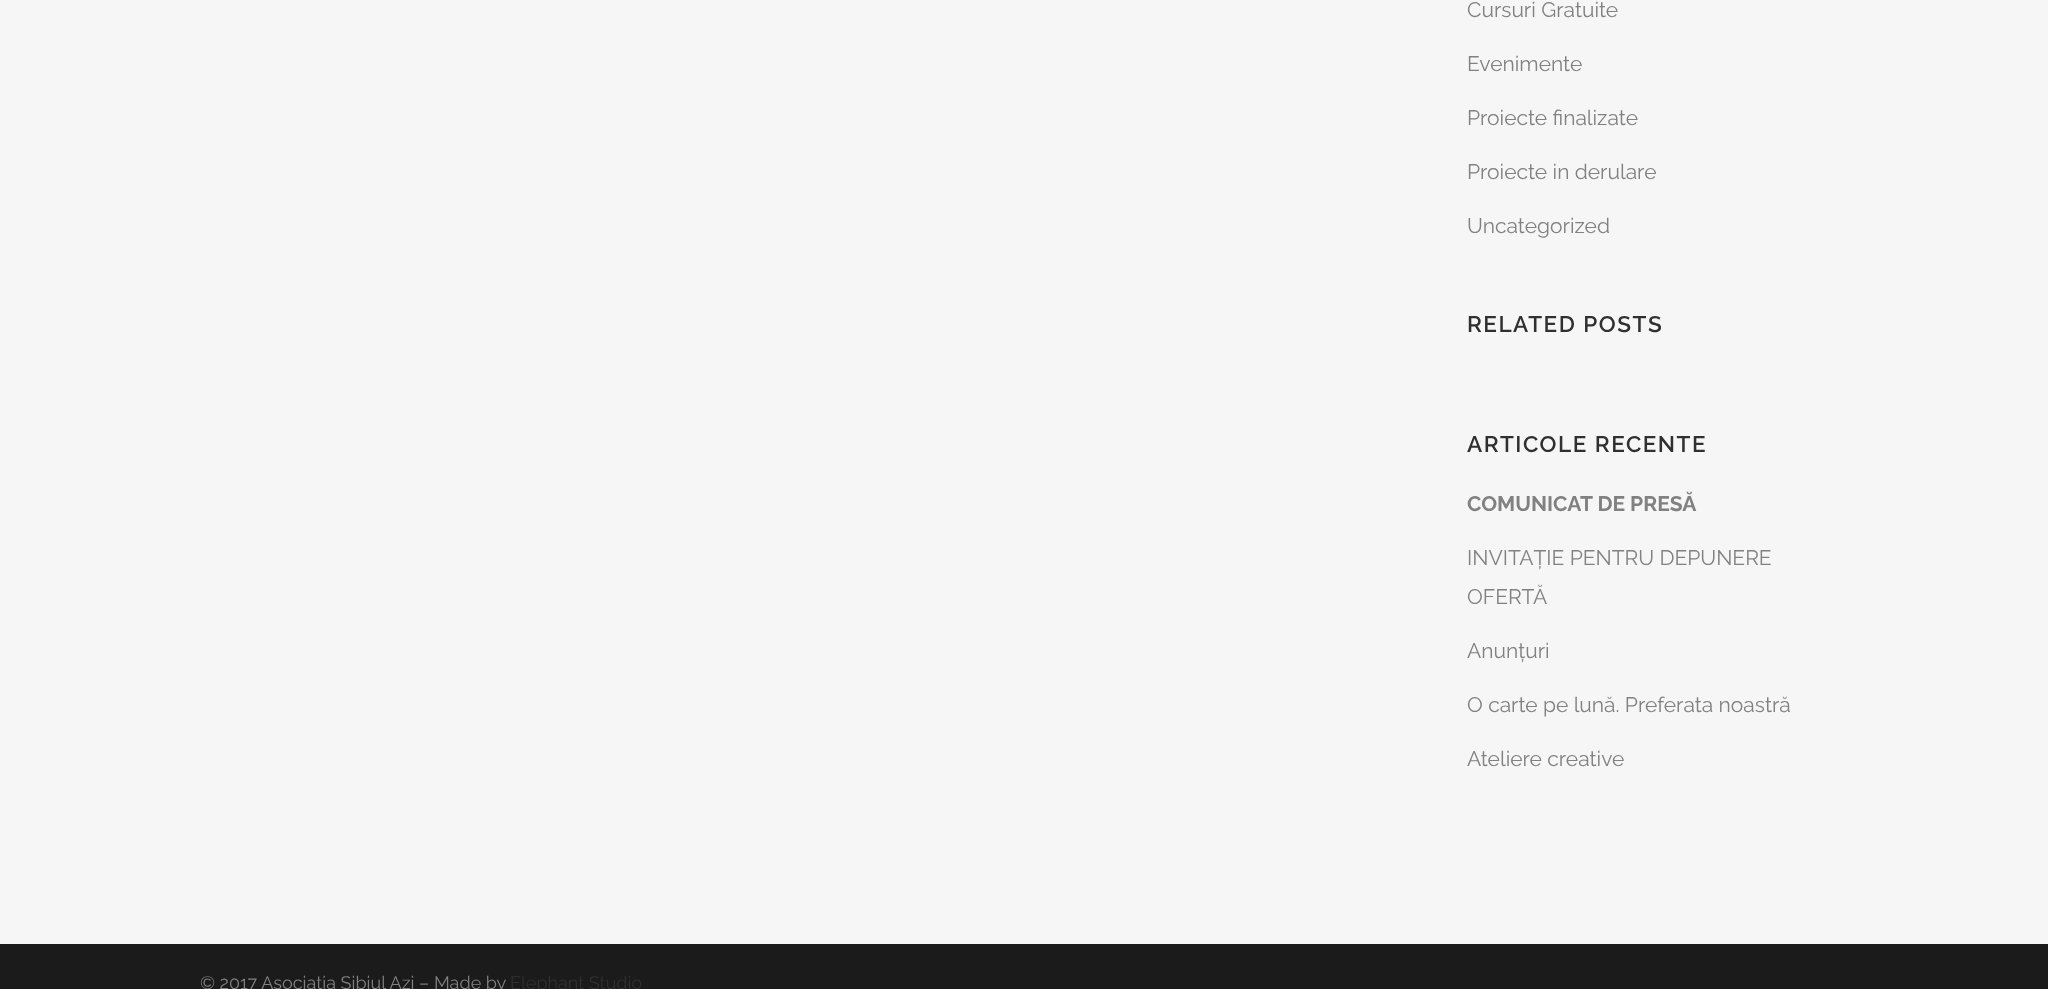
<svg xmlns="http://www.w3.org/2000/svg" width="2048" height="989">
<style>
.a{font:21px Raleway;fill:#818181}
.b{font:600 22.5px Raleway;letter-spacing:1.5px;fill:#303030}
.c{font:bold 21px Raleway;fill:#818181}
.d{font:18px Raleway;fill:#818181}
.e{font:18px Raleway;fill:#303030}
</style>
<rect width="100%" height="100%" fill="#f6f6f6"/>
<path fill="#1b1b1b" d="M0 944h2048v45H0z"/>
<text class="a" x="1467" y="17">Cursuri Gratuite</text>
<text class="a" x="1467" y="71">Evenimente</text>
<text class="a" x="1467" y="125">Proiecte finalizate</text>
<text class="a" x="1467" y="179">Proiecte in derulare</text>
<text class="a" x="1467" y="233">Uncategorized</text>
<text class="b" x="1467" y="332">RELATED POSTS</text>
<text class="b" x="1467" y="452">ARTICOLE RECENTE</text>
<text class="c" x="1467" y="511">COMUNICAT DE PRESĂ</text>
<text class="a" x="1467" y="565">INVITAȚIE PENTRU DEPUNERE</text>
<text class="a" x="1467" y="604">OFERTĂ</text>
<text class="a" x="1467" y="658">Anunțuri</text>
<text class="a" x="1467" y="712">O carte pe lună. Preferata noastră</text>
<text class="a" x="1467" y="766">Ateliere creative</text>
<text class="d" x="200" y="989">© 2017 Asociatia Sibiul Azi – Made by</text>
<text class="e" x="510" y="989">Elephant Studio</text>
</svg>
